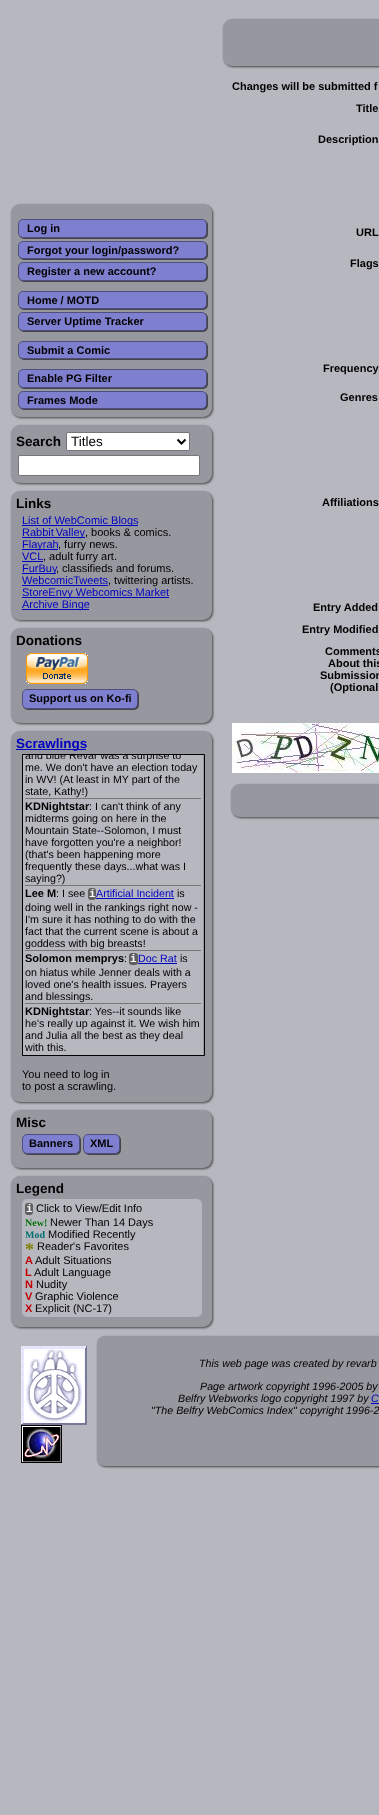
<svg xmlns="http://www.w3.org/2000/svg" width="379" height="1815">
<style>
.a{font:bold 11px Liberation Sans;fill:#000}
.b{font:bold 13.5px Liberation Sans;fill:#000}
.c{font:13.5px Liberation Sans;fill:#000}
.d{font:11px Liberation Sans;fill:#0000c0}
.e{font:11px Liberation Sans;fill:#000}
.f{font:bold 13.5px Liberation Sans;fill:#0000c0}
.g{font:10.7px Liberation Sans;fill:#000}
.h{font:bold 11px Liberation Mono;fill:#fff}
.i{font:10.7px Liberation Sans;fill:#0000c0}
.j{font:bold 10px Liberation Serif;fill:#007000}
.k{font:bold 10px Liberation Serif;fill:#007070}
.l{font:bold 18px Liberation Serif;fill:#7f7f00}
.m{font:bold 11px Liberation Sans;fill:#c00000}
.n{font:italic 10.7px Liberation Sans;fill:#000}
.o{font:italic 10.7px Liberation Sans;fill:#0000c0}
</style>
<defs>
<clipPath id="clip1"><path d="M23 755h181v300H23z"/></clipPath>
</defs>
<rect width="100%" height="100%" fill="#b7b7c0"/>
<rect fill="#444" filter="blur(1px)" x="12" y="205" width="201" height="213" rx="9"/>
<rect fill="#9797a0" x="11" y="204" width="201" height="213" rx="9"/>
<rect fill="#444" filter="blur(0.5px)" x="19" y="220" width="189" height="19" rx="5"/>
<rect fill="#7f7fcf" stroke="#4f4f7f" x="18.5" y="219.5" width="188" height="18" rx="4.5"/>
<rect fill="#444" filter="blur(0.5px)" x="19" y="242" width="189" height="18" rx="5"/>
<rect fill="#7f7fcf" stroke="#4f4f7f" x="18.5" y="241.5" width="188" height="17" rx="4.5"/>
<rect fill="#444" filter="blur(0.5px)" x="19" y="263" width="189" height="19" rx="5"/>
<rect fill="#7f7fcf" stroke="#4f4f7f" x="18.5" y="262.5" width="188" height="18" rx="4.5"/>
<rect fill="#444" filter="blur(0.5px)" x="19" y="292" width="189" height="18" rx="5"/>
<rect fill="#7f7fcf" stroke="#4f4f7f" x="18.5" y="291.5" width="188" height="17" rx="4.5"/>
<rect fill="#444" filter="blur(0.5px)" x="19" y="313" width="189" height="19" rx="5"/>
<rect fill="#7f7fcf" stroke="#4f4f7f" x="18.5" y="312.5" width="188" height="18" rx="4.5"/>
<rect fill="#444" filter="blur(0.5px)" x="19" y="342" width="189" height="18" rx="5"/>
<rect fill="#7f7fcf" stroke="#4f4f7f" x="18.5" y="341.5" width="188" height="17" rx="4.5"/>
<rect fill="#444" filter="blur(0.5px)" x="19" y="370" width="189" height="19" rx="5"/>
<rect fill="#7f7fcf" stroke="#4f4f7f" x="18.5" y="369.5" width="188" height="18" rx="4.5"/>
<rect fill="#444" filter="blur(0.5px)" x="19" y="392" width="189" height="18" rx="5"/>
<rect fill="#7f7fcf" stroke="#4f4f7f" x="18.5" y="391.5" width="188" height="17" rx="4.5"/>
<rect fill="#444" filter="blur(1px)" x="12" y="426" width="201" height="58" rx="9"/>
<rect fill="#9797a0" x="11" y="425" width="201" height="58" rx="9"/>
<rect fill="#fff" stroke="#767676" x="66.5" y="432.5" width="123" height="18" rx="1.5"/>
<path fill="none" stroke="#000" stroke-width="2" d="M177.5 439.5l4 4l4-4"/>
<rect fill="#fff" stroke="#767676" x="18.5" y="455.5" width="181" height="20" rx="1.5"/>
<rect fill="#444" filter="blur(1px)" x="12" y="492" width="201" height="129" rx="9"/>
<rect fill="#9797a0" x="11" y="491" width="201" height="129" rx="9"/>
<path fill="#0000c0" d="M22 525h116v1H22z"/>
<path fill="#0000c0" d="M22 537h63v1H22z"/>
<path fill="#0000c0" d="M22 549h36v1H22z"/>
<path fill="#0000c0" d="M22 561h21v1H22z"/>
<path fill="#0000c0" d="M22 573h34v1H22z"/>
<path fill="#0000c0" d="M22 585h86v1H22z"/>
<path fill="#0000c0" d="M22 597h147v1H22z"/>
<path fill="#0000c0" d="M22 609h67v1H22z"/>
<rect fill="#444" filter="blur(1px)" x="12" y="629" width="201" height="95" rx="9"/>
<rect fill="#9797a0" x="11" y="628" width="201" height="95" rx="9"/>
<image href="1.png" x="26" y="653" width="62" height="31"/>
<rect fill="#444" filter="blur(0.5px)" x="23" y="690" width="116" height="20" rx="5"/>
<rect fill="#7f7fcf" stroke="#4f4f7f" x="22.5" y="689.5" width="115" height="19" rx="4.5"/>
<rect fill="#444" filter="blur(1px)" x="12" y="732" width="201" height="371" rx="9"/>
<rect fill="#9797a0" x="11" y="731" width="201" height="371" rx="9"/>
<path fill="#0000c0" d="M16 749h70v1H16z"/>
<path fill="none" stroke="#000" d="M22.5 754.5h182v301H22.5z"/>
<path fill="#b7b7c0" d="M23 755h180v300H23z"/>
<path fill="#777" d="M25 798h176v1H25z"/>
<path fill="#777" d="M25 885h176v1H25z"/>
<rect fill="#5f5f5f" x="88" y="888" width="8" height="12" rx="3"/>
<path fill="#0000c0" d="M96 898h78v1H96z"/>
<path fill="#777" d="M25 950h176v1H25z"/>
<rect fill="#5f5f5f" x="129" y="953" width="9" height="12" rx="3"/>
<path fill="#0000c0" d="M138 963h39v1H138z"/>
<path fill="#777" d="M25 1003h176v1H25z"/>
<rect fill="#444" filter="blur(1px)" x="12" y="1111" width="201" height="58" rx="9"/>
<rect fill="#9797a0" x="11" y="1110" width="201" height="58" rx="9"/>
<rect fill="#444" filter="blur(0.5px)" x="23" y="1135" width="58" height="20" rx="5"/>
<rect fill="#7f7fcf" stroke="#4f4f7f" x="22.5" y="1134.5" width="57" height="19" rx="4.5"/>
<rect fill="#444" filter="blur(0.5px)" x="84" y="1135" width="37" height="20" rx="5"/>
<rect fill="#7f7fcf" stroke="#4f4f7f" x="83.5" y="1134.5" width="36" height="19" rx="4.5"/>
<rect fill="#444" filter="blur(1px)" x="12" y="1177" width="201" height="151" rx="9"/>
<rect fill="#9797a0" x="11" y="1176" width="201" height="151" rx="9"/>
<rect fill="#b7b7c0" x="22" y="1199" width="180" height="118" rx="5"/>
<rect fill="#5f5f5f" x="25" y="1203" width="8" height="12" rx="3"/>
<rect fill="#444" filter="blur(1px)" x="224" y="20" width="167" height="47" rx="9"/>
<rect fill="#9797a0" x="223" y="19" width="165" height="47" rx="9"/>
<image href="2.png" x="232" y="723" width="147" height="50"/>
<rect fill="#444" filter="blur(1px)" x="232" y="785" width="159" height="33" rx="9"/>
<rect fill="#9797a0" x="231" y="784" width="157" height="33" rx="9"/>
<image href="3.png" x="21" y="1346" width="66" height="79"/>
<image href="4.png" x="21" y="1425" width="41" height="38"/>
<rect fill="#444" filter="blur(1px)" x="98" y="1337" width="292" height="130" rx="8"/>
<rect fill="#9797a0" x="97" y="1336" width="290" height="130" rx="8"/>
<path fill="#0000c0" d="M371 1403h8v1H371z"/>
<text class="a" x="27" y="232">Log in</text>
<text class="a" x="27" y="254">Forgot your login/password?</text>
<text class="a" x="27" y="275">Register a new account?</text>
<text class="a" x="27" y="304">Home / MOTD</text>
<text class="a" x="27" y="325">Server Uptime Tracker</text>
<text class="a" x="27" y="354">Submit a Comic</text>
<text class="a" x="27" y="382">Enable PG Filter</text>
<text class="a" x="27" y="404">Frames Mode</text>
<text class="b" x="16" y="446">Search</text>
<text class="c" x="71" y="446">Titles</text>
<text class="b" x="16" y="508">Links</text>
<text class="d" x="22" y="524">List of WebComic Blogs</text>
<text class="d" x="22" y="536" word-spacing="-1">Rabbit Valley</text>
<text class="e" x="85" y="536">, books &amp; comics.</text>
<text class="d" x="22" y="548">Flayrah</text>
<text class="e" x="58" y="548">, furry news.</text>
<text class="d" x="22" y="560">VCL</text>
<text class="e" x="43" y="560">, adult furry art.</text>
<text class="d" x="22" y="572">FurBuy</text>
<text class="e" x="56" y="572">, classifieds and forums.</text>
<text class="d" x="22" y="584">WebcomicTweets</text>
<text class="e" x="108" y="584">, twittering artists.</text>
<text class="d" x="22" y="596">StoreEnvy Webcomics Market</text>
<text class="d" x="22" y="608">Archive Binge</text>
<text class="b" x="16" y="645">Donations</text>
<text class="a" x="29" y="702">Support us on Ko-fi</text>
<text class="f" x="16" y="748">Scrawlings</text>
<g clip-path="url(#clip1)">
<text class="g" x="25" y="759">and blue Revar was a surprise to</text>
</g>
<text class="g" x="25" y="771">me. We don't have an election today</text>
<text class="g" x="25" y="783">in WV! (At least in MY part of the</text>
<text class="g" x="25" y="795">state, Kathy!)</text>
<text class="a" x="25" y="810">KDNightstar</text>
<text class="g" x="89" y="810">: I can't think of any</text>
<text class="g" x="25" y="822">midterms going on here in the</text>
<text class="g" x="25" y="834">Mountain State--Solomon, I must</text>
<text class="g" x="25" y="846">have forgotten you're a neighbor!</text>
<text class="g" x="25" y="858">(that's been happening more</text>
<text class="g" x="25" y="870">frequently these days...what was I</text>
<text class="g" x="25" y="882">saying?)</text>
<text class="a" x="25" y="897">Lee M</text>
<text class="g" x="56" y="897">: I see</text>
<text class="h" x="89" y="897">i</text>
<text class="i" x="96" y="897">Artificial Incident</text>
<text class="g" x="177" y="897">is</text>
<text class="g" x="25" y="911">doing well in the rankings right now -</text>
<text class="g" x="25" y="923">I'm sure it has nothing to do with the</text>
<text class="g" x="25" y="935">fact that the current scene is about a</text>
<text class="g" x="25" y="947">goddess with big breasts!</text>
<text class="a" x="25" y="962">Solomon memprys</text>
<text class="g" x="124" y="962">:</text>
<text class="h" x="130" y="962">i</text>
<text class="i" x="138" y="962">Doc Rat</text>
<text class="g" x="180" y="962">is</text>
<text class="g" x="25" y="976">on hiatus while Jenner deals with a</text>
<text class="g" x="25" y="988">loved one's health issues. Prayers</text>
<text class="g" x="25" y="1000">and blessings.</text>
<text class="a" x="25" y="1015">KDNightstar</text>
<text class="g" x="89" y="1015">: Yes--it sounds like</text>
<text class="g" x="25" y="1027">he's really up against it. We wish him</text>
<text class="g" x="25" y="1039">and Julia all the best as they deal</text>
<text class="g" x="25" y="1051">with this.</text>
<text class="e" x="22" y="1078">You need to log in</text>
<text class="e" x="22" y="1090">to post a scrawling.</text>
<text class="b" x="16" y="1127">Misc</text>
<text class="a" x="29" y="1147">Banners</text>
<text class="a" x="90" y="1147">XML</text>
<text class="b" x="16" y="1193">Legend</text>
<text class="h" x="26" y="1212">i</text>
<text class="e" x="36" y="1212">Click to View/Edit Info</text>
<text class="j" x="25" y="1226">New!</text>
<text class="e" x="50" y="1226">Newer Than 14 Days</text>
<text class="k" x="25" y="1238">Mod</text>
<text class="e" x="48" y="1238">Modified Recently</text>
<text class="l" x="25" y="1255">*</text>
<text class="e" x="37" y="1250">Reader's Favorites</text>
<text class="m" x="25" y="1264">A</text>
<text class="e" x="35" y="1264">Adult Situations</text>
<text class="m" x="25" y="1276">L</text>
<text class="e" x="34" y="1276">Adult Language</text>
<text class="m" x="25" y="1288">N</text>
<text class="e" x="36" y="1288">Nudity</text>
<text class="m" x="25" y="1300">V</text>
<text class="e" x="35" y="1300">Graphic Violence</text>
<text class="m" x="25" y="1312">X</text>
<text class="e" x="35" y="1312">Explicit (NC-17)</text>
<text class="a" x="232" y="90">Changes will be submitted f</text>
<text class="a" x="356" y="112">Title</text>
<text class="a" x="318" y="143">Description</text>
<text class="a" x="356" y="236">URL</text>
<text class="a" x="350" y="267">Flags</text>
<text class="a" x="323" y="372">Frequency</text>
<text class="a" x="340" y="401">Genres</text>
<text class="a" x="322" y="506">Affiliations</text>
<text class="a" x="313" y="611">Entry Added</text>
<text class="a" x="302" y="633">Entry Modified</text>
<text class="a" x="325" y="655">Comments</text>
<text class="a" x="328" y="667">About this</text>
<text class="a" x="320" y="679">Submission</text>
<text class="a" x="330" y="691">(Optional</text>
<text class="n" x="199" y="1367">This web page was created by revarb</text>
<text class="n" x="200" y="1390">Page artwork copyright 1996-2005 by</text>
<text class="n" x="178" y="1402">Belfry Webworks logo copyright 1997 by</text>
<text class="o" x="371" y="1402">C</text>
<text class="n" x="151" y="1414">"The Belfry WebComics Index" copyright 1996-2</text>
</svg>
